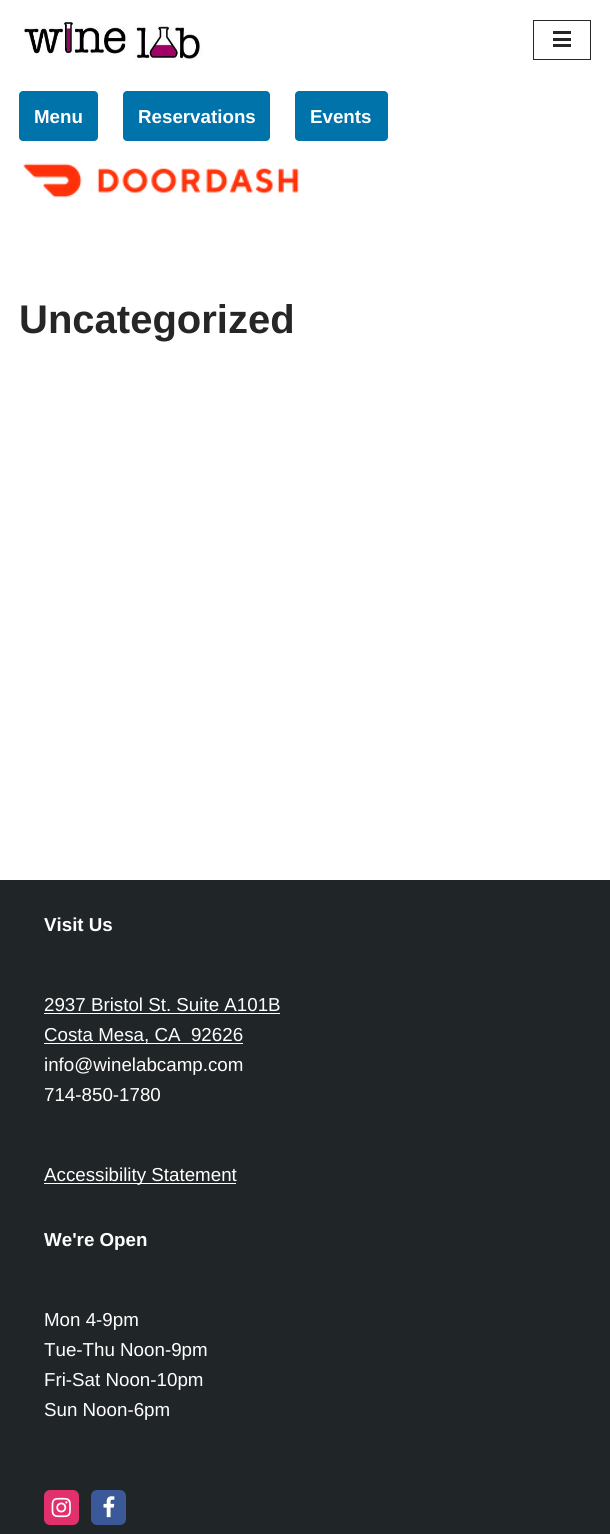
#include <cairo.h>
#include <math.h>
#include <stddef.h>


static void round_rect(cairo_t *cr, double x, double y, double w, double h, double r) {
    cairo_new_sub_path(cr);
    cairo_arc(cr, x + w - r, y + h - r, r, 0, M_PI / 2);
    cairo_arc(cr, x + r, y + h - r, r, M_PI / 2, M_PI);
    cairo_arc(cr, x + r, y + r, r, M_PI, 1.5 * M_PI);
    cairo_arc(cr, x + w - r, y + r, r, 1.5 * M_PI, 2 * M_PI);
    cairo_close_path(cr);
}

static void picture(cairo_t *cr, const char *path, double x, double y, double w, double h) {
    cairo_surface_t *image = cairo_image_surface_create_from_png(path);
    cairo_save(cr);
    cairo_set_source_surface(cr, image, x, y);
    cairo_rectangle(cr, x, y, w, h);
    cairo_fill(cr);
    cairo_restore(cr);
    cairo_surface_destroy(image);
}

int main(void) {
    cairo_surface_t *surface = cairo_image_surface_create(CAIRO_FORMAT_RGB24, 610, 1534);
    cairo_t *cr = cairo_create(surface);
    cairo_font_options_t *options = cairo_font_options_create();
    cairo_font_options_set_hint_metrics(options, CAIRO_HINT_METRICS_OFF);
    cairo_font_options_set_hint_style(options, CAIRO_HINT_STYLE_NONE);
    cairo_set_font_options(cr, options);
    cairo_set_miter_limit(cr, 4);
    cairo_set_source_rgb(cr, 1, 1, 1);
    cairo_paint(cr);
    picture(cr, "img1.png", 23, 22, 179, 39);
    cairo_rectangle(cr, 533.5, 20.5, 57, 39);
    cairo_set_source_rgb(cr, 0.153, 0.149, 0.149);
    cairo_set_line_width(cr, 1);
    cairo_stroke(cr);
    cairo_rectangle(cr, 553, 31, 18, 3);
    cairo_fill(cr);
    cairo_rectangle(cr, 553, 38, 18, 3);
    cairo_fill(cr);
    cairo_rectangle(cr, 553, 44, 18, 3);
    cairo_fill(cr);
    cairo_set_source_rgb(cr, 0, 0.451, 0.667);
    round_rect(cr, 19, 91, 79, 50, 4);
    cairo_fill(cr);
    cairo_select_font_face(cr, "Liberation Sans", CAIRO_FONT_SLANT_NORMAL, CAIRO_FONT_WEIGHT_BOLD);
    cairo_set_font_size(cr, 18.75);
    cairo_set_source_rgb(cr, 1, 1, 1);
    cairo_move_to(cr, 34, 123);
    cairo_show_text(cr, "Menu");
    cairo_set_source_rgb(cr, 0, 0.451, 0.667);
    round_rect(cr, 123, 91, 147, 50, 4);
    cairo_fill(cr);
    cairo_set_source_rgb(cr, 1, 1, 1);
    cairo_move_to(cr, 138, 123);
    cairo_show_text(cr, "Reservations");
    cairo_set_source_rgb(cr, 0, 0.451, 0.667);
    round_rect(cr, 295, 91, 93, 50, 4);
    cairo_fill(cr);
    cairo_set_source_rgb(cr, 1, 1, 1);
    cairo_move_to(cr, 310, 123);
    cairo_show_text(cr, "Events");
    picture(cr, "img2.png", 23, 163, 276, 35);
    cairo_set_font_size(cr, 40);
    cairo_set_source_rgb(cr, 0.153, 0.149, 0.149);
    cairo_move_to(cr, 19, 333);
    cairo_show_text(cr, "Uncategorized");
    cairo_set_source_rgb(cr, 0.125, 0.145, 0.153);
    cairo_rectangle(cr, 0, 880, 610, 654);
    cairo_fill(cr);
    cairo_set_font_size(cr, 18.75);
    cairo_set_source_rgb(cr, 1, 1, 1);
    cairo_move_to(cr, 44, 931);
    cairo_show_text(cr, "Visit Us");
    cairo_select_font_face(cr, "Liberation Sans", CAIRO_FONT_SLANT_NORMAL, CAIRO_FONT_WEIGHT_NORMAL);
    cairo_move_to(cr, 44, 1011);
    cairo_show_text(cr, "2937 Bristol St. Suite A101B");
    cairo_rectangle(cr, 44, 1013, 236, 1);
    cairo_fill(cr);
    cairo_rectangle(cr, 44, 1043, 199, 1);
    cairo_fill(cr);
    cairo_move_to(cr, 44, 1041);
    cairo_show_text(cr, "Costa Mesa, CA  92626");
    cairo_move_to(cr, 44, 1071);
    cairo_show_text(cr, "info@winelabcamp.com");
    cairo_move_to(cr, 44, 1101);
    cairo_show_text(cr, "714-850-1780");
    cairo_rectangle(cr, 44, 1183, 192, 1);
    cairo_fill(cr);
    cairo_move_to(cr, 44, 1181);
    cairo_show_text(cr, "Accessibility Statement");
    cairo_select_font_face(cr, "Liberation Sans", CAIRO_FONT_SLANT_NORMAL, CAIRO_FONT_WEIGHT_BOLD);
    cairo_move_to(cr, 44, 1246);
    cairo_show_text(cr, "We're Open");
    cairo_select_font_face(cr, "Liberation Sans", CAIRO_FONT_SLANT_NORMAL, CAIRO_FONT_WEIGHT_NORMAL);
    cairo_move_to(cr, 44, 1326);
    cairo_show_text(cr, "Mon 4-9pm");
    cairo_move_to(cr, 44, 1356);
    cairo_show_text(cr, "Tue-Thu Noon-9pm");
    cairo_move_to(cr, 44, 1386);
    cairo_show_text(cr, "Fri-Sat Noon-10pm");
    cairo_move_to(cr, 44, 1416);
    cairo_show_text(cr, "Sun Noon-6pm");
    cairo_set_source_rgb(cr, 0.882, 0.188, 0.424);
    round_rect(cr, 44, 1490, 35, 35, 6);
    cairo_fill(cr);
    picture(cr, "img3.png", 51, 1497, 20, 21);
    cairo_set_source_rgb(cr, 0.231, 0.349, 0.596);
    round_rect(cr, 91, 1490, 35, 35, 6);
    cairo_fill(cr);
    picture(cr, "img4.png", 103, 1496, 12, 22);
    cairo_surface_write_to_png(surface, "page.png");
    cairo_font_options_destroy(options);
    cairo_destroy(cr);
    cairo_surface_destroy(surface);
    return 0;
}
